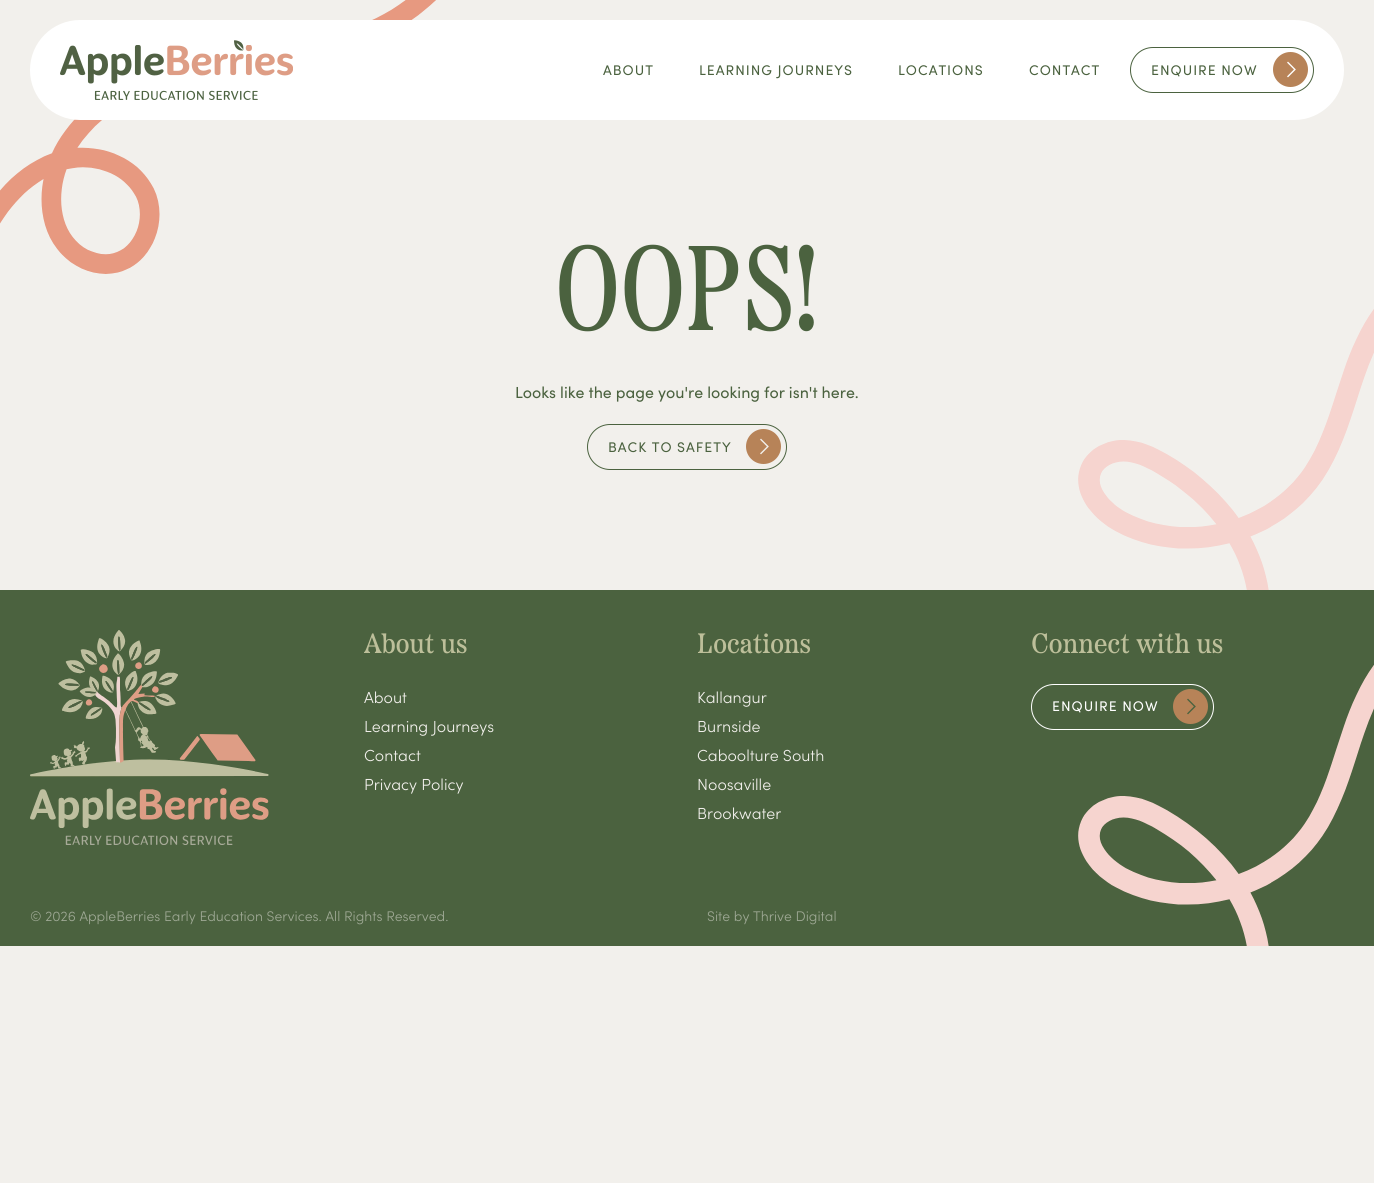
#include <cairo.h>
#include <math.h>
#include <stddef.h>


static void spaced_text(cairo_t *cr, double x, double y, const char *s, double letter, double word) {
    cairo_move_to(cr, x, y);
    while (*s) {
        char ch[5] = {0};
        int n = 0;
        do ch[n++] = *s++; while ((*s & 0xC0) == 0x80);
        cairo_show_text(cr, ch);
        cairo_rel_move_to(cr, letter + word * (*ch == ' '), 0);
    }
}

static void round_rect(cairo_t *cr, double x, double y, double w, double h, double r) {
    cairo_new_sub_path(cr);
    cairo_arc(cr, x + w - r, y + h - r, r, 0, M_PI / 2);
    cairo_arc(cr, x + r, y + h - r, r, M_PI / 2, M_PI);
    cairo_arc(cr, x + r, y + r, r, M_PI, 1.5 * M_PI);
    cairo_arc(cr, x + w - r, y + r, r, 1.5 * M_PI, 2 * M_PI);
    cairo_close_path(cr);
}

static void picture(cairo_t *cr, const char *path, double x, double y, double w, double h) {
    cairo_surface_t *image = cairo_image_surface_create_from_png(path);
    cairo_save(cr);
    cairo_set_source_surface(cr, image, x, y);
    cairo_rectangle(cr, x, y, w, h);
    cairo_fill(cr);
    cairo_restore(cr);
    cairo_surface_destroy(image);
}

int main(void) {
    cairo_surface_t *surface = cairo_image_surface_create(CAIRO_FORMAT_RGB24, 1374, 1183);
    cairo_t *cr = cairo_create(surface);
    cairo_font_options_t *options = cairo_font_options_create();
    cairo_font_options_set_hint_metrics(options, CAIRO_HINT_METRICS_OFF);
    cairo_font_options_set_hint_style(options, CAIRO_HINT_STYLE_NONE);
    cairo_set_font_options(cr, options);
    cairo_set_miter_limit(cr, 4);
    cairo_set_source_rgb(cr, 0.949, 0.941, 0.922);
    cairo_paint(cr);
    picture(cr, "img3.png", 0, 0, 436, 274);
    cairo_set_source_rgb(cr, 1, 1, 1);
    round_rect(cr, 30, 20, 1314, 100, 50);
    cairo_fill(cr);
    picture(cr, "img1.png", 60, 40, 233, 60);
    cairo_select_font_face(cr, "Sofia", CAIRO_FONT_SLANT_NORMAL, CAIRO_FONT_WEIGHT_NORMAL);
    cairo_set_font_size(cr, 14);
    cairo_set_source_rgb(cr, 0.294, 0.384, 0.247);
    spaced_text(cr, 603, 75, "ABOUT", 1, 0);
    spaced_text(cr, 699, 75, "LEARNING JOURNEYS", 1, 0);
    spaced_text(cr, 898, 75, "LOCATIONS", 1, 0);
    spaced_text(cr, 1029, 75, "CONTACT", 1, 0);
    round_rect(cr, 1130.5, 47.5, 183, 45, 22.5);
    cairo_set_line_width(cr, 1);
    cairo_stroke(cr);
    spaced_text(cr, 1151, 75, "ENQUIRE NOW", 1, 0);
    picture(cr, "img2.png", 1273, 52, 35, 35);
    cairo_select_font_face(cr, "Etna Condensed", CAIRO_FONT_SLANT_NORMAL, CAIRO_FONT_WEIGHT_NORMAL);
    cairo_set_font_size(cr, 120);
    cairo_move_to(cr, 555, 330);
    cairo_show_text(cr, "OOPS!");
    cairo_select_font_face(cr, "Sofia", CAIRO_FONT_SLANT_NORMAL, CAIRO_FONT_WEIGHT_NORMAL);
    cairo_set_font_size(cr, 16);
    cairo_move_to(cr, 515, 398);
    cairo_show_text(cr, "Looks like the page you're looking for isn't here.");
    round_rect(cr, 587.5, 424.5, 199, 45, 22.5);
    cairo_stroke(cr);
    cairo_set_font_size(cr, 14);
    spaced_text(cr, 608, 452, "BACK TO SAFETY", 1, 0);
    picture(cr, "img4.png", 746, 429, 35, 35);
    picture(cr, "img5.png", 1078, 309, 296, 281);
    cairo_rectangle(cr, 0, 590, 1374, 356);
    cairo_fill(cr);
    picture(cr, "img6.png", 30, 630, 239, 215);
    cairo_select_font_face(cr, "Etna", CAIRO_FONT_SLANT_NORMAL, CAIRO_FONT_WEIGHT_NORMAL);
    cairo_set_font_size(cr, 28);
    cairo_set_source_rgb(cr, 0.741, 0.749, 0.604);
    cairo_move_to(cr, 364, 653);
    cairo_show_text(cr, "About us");
    cairo_select_font_face(cr, "Sofia Light", CAIRO_FONT_SLANT_NORMAL, CAIRO_FONT_WEIGHT_NORMAL);
    cairo_set_font_size(cr, 16);
    cairo_set_source_rgb(cr, 0.949, 0.941, 0.922);
    cairo_move_to(cr, 364, 703);
    cairo_show_text(cr, "About");
    cairo_move_to(cr, 364, 732);
    cairo_show_text(cr, "Learning Journeys");
    cairo_move_to(cr, 364, 761);
    cairo_show_text(cr, "Contact");
    cairo_move_to(cr, 364, 790);
    cairo_show_text(cr, "Privacy Policy");
    cairo_select_font_face(cr, "Etna", CAIRO_FONT_SLANT_NORMAL, CAIRO_FONT_WEIGHT_NORMAL);
    cairo_set_font_size(cr, 28);
    cairo_set_source_rgb(cr, 0.741, 0.749, 0.604);
    cairo_move_to(cr, 697, 653);
    cairo_show_text(cr, "Locations");
    cairo_select_font_face(cr, "Sofia Light", CAIRO_FONT_SLANT_NORMAL, CAIRO_FONT_WEIGHT_NORMAL);
    cairo_set_font_size(cr, 16);
    cairo_set_source_rgb(cr, 0.949, 0.941, 0.922);
    cairo_move_to(cr, 697, 703);
    cairo_show_text(cr, "Kallangur");
    cairo_move_to(cr, 697, 732);
    cairo_show_text(cr, "Burnside");
    cairo_move_to(cr, 697, 761);
    cairo_show_text(cr, "Caboolture South");
    cairo_move_to(cr, 697, 790);
    cairo_show_text(cr, "Noosaville");
    cairo_move_to(cr, 697, 819);
    cairo_show_text(cr, "Brookwater");
    cairo_select_font_face(cr, "Etna", CAIRO_FONT_SLANT_NORMAL, CAIRO_FONT_WEIGHT_NORMAL);
    cairo_set_font_size(cr, 28);
    cairo_set_source_rgb(cr, 0.741, 0.749, 0.604);
    cairo_move_to(cr, 1031, 653);
    cairo_show_text(cr, "Connect with us");
    picture(cr, "img8.png", 1078, 665, 296, 281);
    round_rect(cr, 1031.5, 684.5, 182, 45, 22.5);
    cairo_set_source_rgb(cr, 1, 1, 1);
    cairo_stroke(cr);
    cairo_select_font_face(cr, "Sofia", CAIRO_FONT_SLANT_NORMAL, CAIRO_FONT_WEIGHT_NORMAL);
    cairo_set_font_size(cr, 14);
    spaced_text(cr, 1052, 711, "ENQUIRE NOW", 1, 0);
    picture(cr, "img7.png", 1173, 689, 35, 35);
    cairo_select_font_face(cr, "Sofia Light", CAIRO_FONT_SLANT_NORMAL, CAIRO_FONT_WEIGHT_NORMAL);
    cairo_set_source_rgb(cr, 0.624, 0.663, 0.584);
    cairo_move_to(cr, 30, 921);
    cairo_show_text(cr, "© 2026 AppleBerries Early Education Services. All Rights Reserved.");
    cairo_move_to(cr, 707, 921);
    cairo_show_text(cr, "Site by Thrive Digital");
    cairo_surface_write_to_png(surface, "page.png");
    cairo_font_options_destroy(options);
    cairo_destroy(cr);
    cairo_surface_destroy(surface);
    return 0;
}
